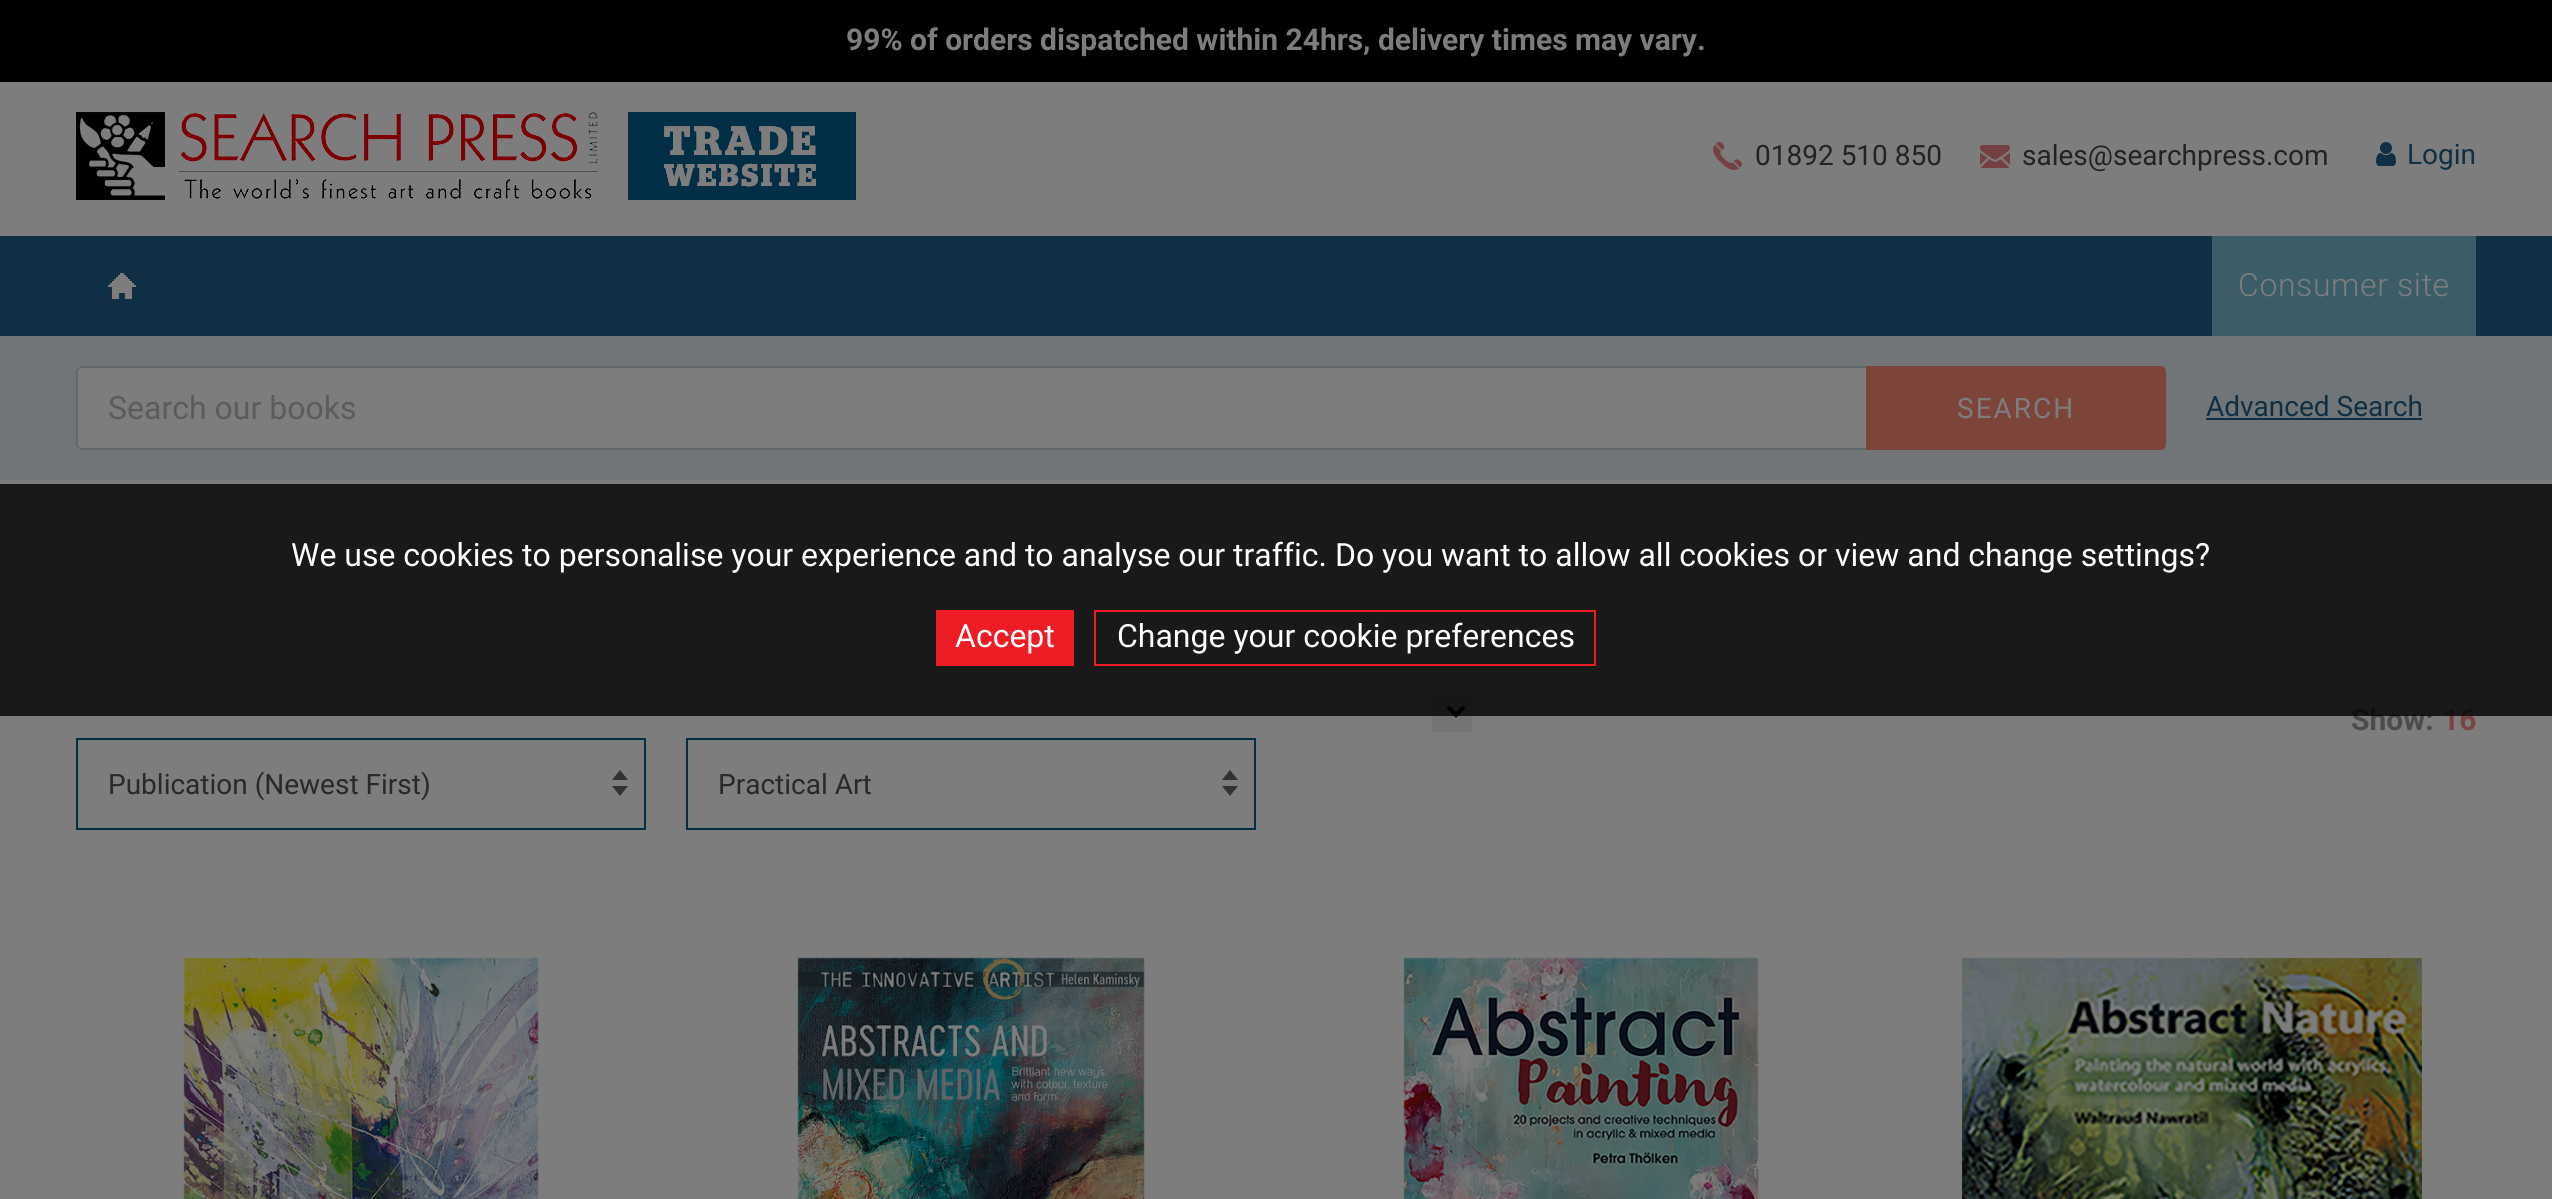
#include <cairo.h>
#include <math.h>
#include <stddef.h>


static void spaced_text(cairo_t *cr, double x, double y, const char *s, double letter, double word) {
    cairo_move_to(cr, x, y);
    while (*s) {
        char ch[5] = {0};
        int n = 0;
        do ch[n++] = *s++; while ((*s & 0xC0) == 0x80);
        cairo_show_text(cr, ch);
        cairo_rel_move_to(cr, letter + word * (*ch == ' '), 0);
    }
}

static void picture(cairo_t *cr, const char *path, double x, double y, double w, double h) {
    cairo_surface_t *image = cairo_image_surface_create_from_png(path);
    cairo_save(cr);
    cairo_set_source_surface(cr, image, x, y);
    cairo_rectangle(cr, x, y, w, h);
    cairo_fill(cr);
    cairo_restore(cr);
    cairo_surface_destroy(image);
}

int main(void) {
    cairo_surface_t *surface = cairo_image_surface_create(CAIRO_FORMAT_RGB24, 2552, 1199);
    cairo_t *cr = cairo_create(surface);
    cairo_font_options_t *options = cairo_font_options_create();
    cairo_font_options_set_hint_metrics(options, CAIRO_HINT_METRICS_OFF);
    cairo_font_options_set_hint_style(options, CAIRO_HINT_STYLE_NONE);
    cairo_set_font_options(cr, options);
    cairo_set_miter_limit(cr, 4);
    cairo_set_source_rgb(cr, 0.49, 0.49, 0.49);
    cairo_paint(cr);
    cairo_set_source_rgb(cr, 0, 0, 0);
    cairo_rectangle(cr, 0, 0, 2552, 82);
    cairo_fill(cr);
    cairo_select_font_face(cr, "Roboto", CAIRO_FONT_SLANT_NORMAL, CAIRO_FONT_WEIGHT_BOLD);
    cairo_set_font_size(cr, 30);
    cairo_set_source_rgb(cr, 0.49, 0.49, 0.49);
    cairo_move_to(cr, 846, 50);
    cairo_show_text(cr, "99% of orders dispatched within 24hrs, delivery times may vary.");
    picture(cr, "img1.png", 76, 112, 780, 88);
    picture(cr, "img2.png", 1713, 142, 29, 28);
    cairo_select_font_face(cr, "Roboto", CAIRO_FONT_SLANT_NORMAL, CAIRO_FONT_WEIGHT_NORMAL);
    cairo_set_font_size(cr, 28);
    cairo_set_source_rgb(cr, 0.137, 0.137, 0.137);
    cairo_move_to(cr, 1755, 165);
    cairo_show_text(cr, "01892 510 850");
    picture(cr, "img3.png", 1980, 145, 30, 23);
    cairo_move_to(cr, 2022, 165);
    cairo_show_text(cr, "sales@searchpress.com");
    picture(cr, "img4.png", 2376, 142, 20, 24);
    cairo_set_source_rgb(cr, 0.059, 0.184, 0.267);
    cairo_move_to(cr, 2407, 164);
    cairo_show_text(cr, "Login");
    cairo_rectangle(cr, 0, 236, 2552, 100);
    cairo_fill(cr);
    picture(cr, "img5.png", 108, 273, 28, 26);
    cairo_set_source_rgb(cr, 0.227, 0.365, 0.408);
    cairo_rectangle(cr, 2212, 236, 264, 100);
    cairo_fill(cr);
    cairo_select_font_face(cr, "Roboto Light", CAIRO_FONT_SLANT_NORMAL, CAIRO_FONT_WEIGHT_NORMAL);
    cairo_set_font_size(cr, 32);
    cairo_set_source_rgb(cr, 0.49, 0.49, 0.49);
    spaced_text(cr, 2238, 296, "Consumer site", 0.6, 0);
    cairo_set_source_rgb(cr, 0.447, 0.459, 0.467);
    cairo_rectangle(cr, 0, 336, 2552, 144);
    cairo_fill(cr);
    cairo_set_source_rgb(cr, 0.49, 0.49, 0.49);
    cairo_new_path(cr);
    cairo_move_to(cr, 82, 366);
    cairo_line_to(cr, 1866, 366);
    cairo_line_to(cr, 1866, 450);
    cairo_line_to(cr, 82, 450);
    cairo_curve_to(cr, 78.5, 450, 76, 447.5, 76, 444);
    cairo_line_to(cr, 76, 372);
    cairo_curve_to(cr, 76, 368.5, 78.5, 366, 82, 366);
    cairo_close_path(cr);
    cairo_fill(cr);
    cairo_set_source_rgb(cr, 0.376, 0.412, 0.439);
    cairo_set_fill_rule(cr, CAIRO_FILL_RULE_EVEN_ODD);
    cairo_new_path(cr);
    cairo_move_to(cr, 82, 366);
    cairo_line_to(cr, 1866, 366);
    cairo_line_to(cr, 1866, 450);
    cairo_line_to(cr, 82, 450);
    cairo_curve_to(cr, 79, 450, 76, 447, 76, 444);
    cairo_line_to(cr, 76, 372);
    cairo_curve_to(cr, 76, 369, 79, 366, 82, 366);
    cairo_close_path(cr);
    cairo_move_to(cr, 82, 368);
    cairo_line_to(cr, 1866, 368);
    cairo_line_to(cr, 1866, 448);
    cairo_line_to(cr, 82, 448);
    cairo_curve_to(cr, 80, 448, 78, 446, 78, 444);
    cairo_line_to(cr, 78, 372);
    cairo_curve_to(cr, 78, 370, 80, 368, 82, 368);
    cairo_close_path(cr);
    cairo_fill(cr);
    cairo_select_font_face(cr, "Roboto", CAIRO_FONT_SLANT_NORMAL, CAIRO_FONT_WEIGHT_NORMAL);
    cairo_set_source_rgb(cr, 0.361, 0.361, 0.361);
    cairo_move_to(cr, 108, 419);
    cairo_show_text(cr, "Search our books");
    cairo_set_source_rgb(cr, 0.49, 0.267, 0.224);
    cairo_new_path(cr);
    cairo_move_to(cr, 1867, 367);
    cairo_line_to(cr, 2160, 367);
    cairo_curve_to(cr, 2163, 367, 2165, 369, 2165, 372);
    cairo_line_to(cr, 2165, 444);
    cairo_curve_to(cr, 2165, 447, 2163, 449, 2160, 449);
    cairo_line_to(cr, 1867, 449);
    cairo_close_path(cr);
    cairo_fill_preserve(cr);
    cairo_stroke(cr);
    cairo_set_font_size(cr, 28);
    cairo_set_source_rgb(cr, 0.49, 0.49, 0.49);
    spaced_text(cr, 1957, 418, "SEARCH", 2, 0);
    cairo_set_source_rgb(cr, 0.059, 0.184, 0.267);
    cairo_move_to(cr, 2206, 416);
    cairo_show_text(cr, "Advanced Search");
    cairo_rectangle(cr, 2206, 418, 216, 2);
    cairo_fill(cr);
    cairo_set_source_rgb(cr, 0.459, 0.459, 0.459);
    cairo_rectangle(cr, 1432, 690, 40, 42);
    cairo_fill(cr);
    cairo_new_path(cr);
    cairo_move_to(cr, 1448, 707);
    cairo_line_to(cr, 1456, 715);
    cairo_line_to(cr, 1464, 707);
    cairo_set_source_rgb(cr, 0, 0, 0);
    cairo_set_line_width(cr, 4);
    cairo_stroke(cr);
    cairo_select_font_face(cr, "Roboto", CAIRO_FONT_SLANT_NORMAL, CAIRO_FONT_WEIGHT_BOLD);
    cairo_set_font_size(cr, 30);
    cairo_set_source_rgb(cr, 0.298, 0.298, 0.298);
    cairo_move_to(cr, 2351, 730);
    cairo_show_text(cr, "Show:");
    cairo_set_source_rgb(cr, 0.49, 0.263, 0.263);
    cairo_move_to(cr, 2442, 730);
    cairo_show_text(cr, "16");
    cairo_set_source_rgba(cr, 0, 0, 0, 0.8);
    cairo_rectangle(cr, 0, 484, 2552, 232);
    cairo_fill(cr);
    cairo_select_font_face(cr, "Roboto", CAIRO_FONT_SLANT_NORMAL, CAIRO_FONT_WEIGHT_NORMAL);
    cairo_set_font_size(cr, 32);
    cairo_set_source_rgb(cr, 1, 1, 1);
    cairo_move_to(cr, 291, 566);
    cairo_show_text(cr, "We use cookies to personalise your experience and to analyse our traffic. Do you want to allow all cookies or view and change settings?");
    cairo_set_source_rgb(cr, 0.933, 0.11, 0.145);
    cairo_rectangle(cr, 936, 610, 138, 56);
    cairo_fill(cr);
    cairo_set_source_rgb(cr, 1, 1, 1);
    cairo_move_to(cr, 955, 647);
    cairo_show_text(cr, "Accept");
    cairo_rectangle(cr, 1095, 611, 500, 54);
    cairo_set_source_rgb(cr, 0.933, 0.11, 0.145);
    cairo_set_line_width(cr, 2);
    cairo_stroke(cr);
    cairo_set_source_rgb(cr, 1, 1, 1);
    cairo_move_to(cr, 1117, 647);
    cairo_show_text(cr, "Change your cookie preferences");
    cairo_rectangle(cr, 77, 739, 568, 90);
    cairo_set_source_rgb(cr, 0, 0.184, 0.275);
    cairo_stroke(cr);
    cairo_set_font_size(cr, 28);
    cairo_set_source_rgb(cr, 0.161, 0.161, 0.161);
    cairo_move_to(cr, 108, 794);
    cairo_show_text(cr, "Publication (Newest First)");
    cairo_set_source_rgb(cr, 0.196, 0.196, 0.196);
    cairo_set_fill_rule(cr, CAIRO_FILL_RULE_WINDING);
    cairo_new_path(cr);
    cairo_move_to(cr, 612, 786);
    cairo_line_to(cr, 628, 786);
    cairo_line_to(cr, 620, 796);
    cairo_close_path(cr);
    cairo_move_to(cr, 628, 780);
    cairo_line_to(cr, 612, 780);
    cairo_line_to(cr, 620, 770);
    cairo_close_path(cr);
    cairo_fill(cr);
    cairo_rectangle(cr, 687, 739, 568, 90);
    cairo_set_source_rgb(cr, 0, 0.184, 0.275);
    cairo_stroke(cr);
    cairo_set_source_rgb(cr, 0.161, 0.161, 0.161);
    cairo_move_to(cr, 718, 794);
    cairo_show_text(cr, "Practical Art");
    cairo_set_source_rgb(cr, 0.196, 0.196, 0.196);
    cairo_new_path(cr);
    cairo_move_to(cr, 1222, 786);
    cairo_line_to(cr, 1238, 786);
    cairo_line_to(cr, 1230, 796);
    cairo_close_path(cr);
    cairo_move_to(cr, 1238, 780);
    cairo_line_to(cr, 1222, 780);
    cairo_line_to(cr, 1230, 770);
    cairo_close_path(cr);
    cairo_fill(cr);
    picture(cr, "img6.png", 183, 957, 356, 242);
    picture(cr, "img7.png", 797, 957, 348, 242);
    picture(cr, "img8.png", 1403, 957, 356, 242);
    picture(cr, "img9.png", 1961, 957, 461, 242);
    cairo_surface_write_to_png(surface, "page.png");
    cairo_font_options_destroy(options);
    cairo_destroy(cr);
    cairo_surface_destroy(surface);
    return 0;
}
